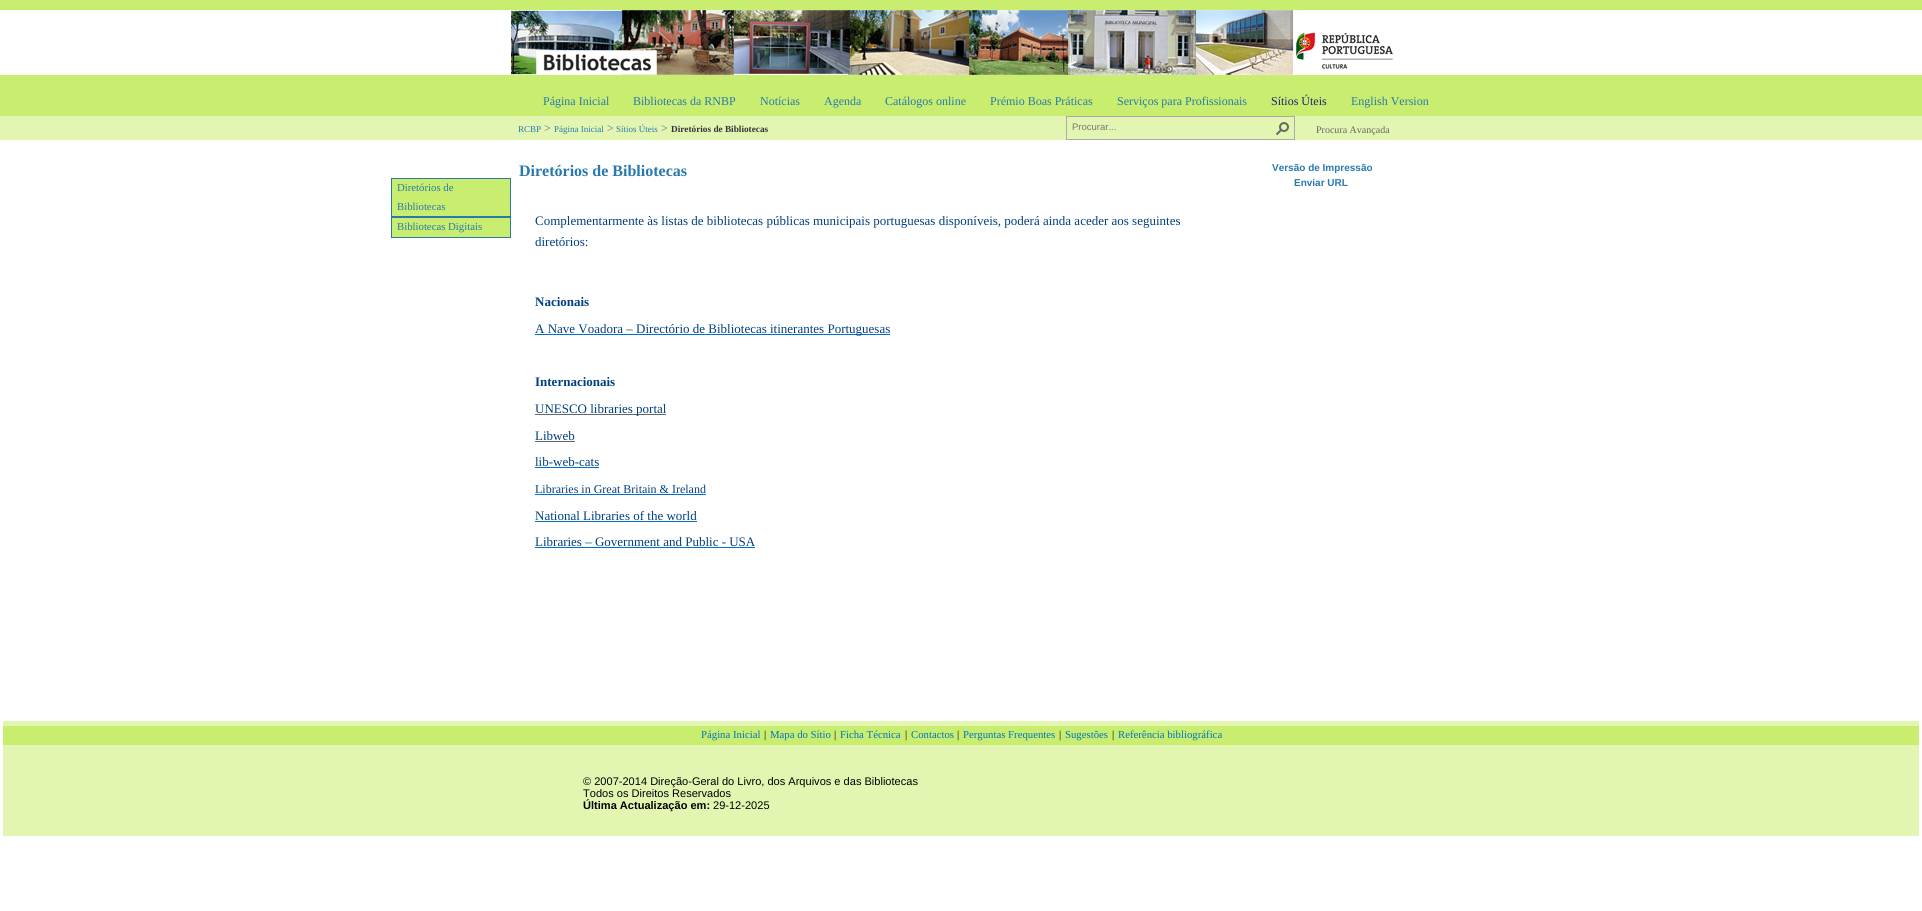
#include <cairo.h>
#include <math.h>
#include <stddef.h>


static void picture(cairo_t *cr, const char *path, double x, double y, double w, double h) {
    cairo_surface_t *image = cairo_image_surface_create_from_png(path);
    cairo_save(cr);
    cairo_set_source_surface(cr, image, x, y);
    cairo_rectangle(cr, x, y, w, h);
    cairo_fill(cr);
    cairo_restore(cr);
    cairo_surface_destroy(image);
}

int main(void) {
    cairo_surface_t *surface = cairo_image_surface_create(CAIRO_FORMAT_RGB24, 1922, 911);
    cairo_t *cr = cairo_create(surface);
    cairo_font_options_t *options = cairo_font_options_create();
    cairo_font_options_set_hint_metrics(options, CAIRO_HINT_METRICS_OFF);
    cairo_font_options_set_hint_style(options, CAIRO_HINT_STYLE_NONE);
    cairo_set_font_options(cr, options);
    cairo_set_miter_limit(cr, 4);
    cairo_set_source_rgb(cr, 1, 1, 1);
    cairo_paint(cr);
    cairo_set_source_rgb(cr, 0.788, 0.929, 0.431);
    cairo_rectangle(cr, 0, 0, 1922, 10);
    cairo_fill(cr);
    picture(cr, "img1.png", 511, 10, 882, 65);
    cairo_rectangle(cr, 0, 75, 1922, 41);
    cairo_fill(cr);
    cairo_select_font_face(cr, "Liberation Serif", CAIRO_FONT_SLANT_NORMAL, CAIRO_FONT_WEIGHT_NORMAL);
    cairo_set_font_size(cr, 12);
    cairo_set_source_rgb(cr, 0.161, 0.475, 0.678);
    cairo_move_to(cr, 543, 105);
    cairo_show_text(cr, "Página Inicial");
    cairo_move_to(cr, 633, 105);
    cairo_show_text(cr, "Bibliotecas da RNBP");
    cairo_move_to(cr, 760, 105);
    cairo_show_text(cr, "Notícias");
    cairo_move_to(cr, 824, 105);
    cairo_show_text(cr, "Agenda");
    cairo_move_to(cr, 885, 105);
    cairo_show_text(cr, "Catálogos online");
    cairo_move_to(cr, 990, 105);
    cairo_show_text(cr, "Prémio Boas Práticas");
    cairo_move_to(cr, 1117, 105);
    cairo_show_text(cr, "Serviços para Profissionais");
    cairo_set_source_rgb(cr, 0.102, 0.137, 0.439);
    cairo_move_to(cr, 1271, 105);
    cairo_show_text(cr, "Sítios Úteis");
    cairo_set_source_rgb(cr, 0.161, 0.475, 0.678);
    cairo_move_to(cr, 1351, 105);
    cairo_show_text(cr, "English Version");
    cairo_set_source_rgb(cr, 0.886, 0.961, 0.698);
    cairo_rectangle(cr, 0, 116, 1922, 24);
    cairo_fill(cr);
    cairo_set_font_size(cr, 9);
    cairo_set_source_rgb(cr, 0.161, 0.475, 0.678);
    cairo_move_to(cr, 518, 132);
    cairo_show_text(cr, "RCBP");
    cairo_set_font_size(cr, 12);
    cairo_set_source_rgb(cr, 0.396, 0.42, 0.467);
    cairo_move_to(cr, 544, 132);
    cairo_show_text(cr, ">");
    cairo_set_font_size(cr, 9);
    cairo_set_source_rgb(cr, 0.161, 0.475, 0.678);
    cairo_move_to(cr, 554, 132);
    cairo_show_text(cr, "Página Inicial");
    cairo_set_font_size(cr, 12);
    cairo_set_source_rgb(cr, 0.396, 0.42, 0.467);
    cairo_move_to(cr, 607, 132);
    cairo_show_text(cr, ">");
    cairo_set_font_size(cr, 9);
    cairo_set_source_rgb(cr, 0.161, 0.475, 0.678);
    cairo_move_to(cr, 616, 132);
    cairo_show_text(cr, "Sítios Úteis");
    cairo_set_font_size(cr, 12);
    cairo_set_source_rgb(cr, 0.396, 0.42, 0.467);
    cairo_move_to(cr, 661, 132);
    cairo_show_text(cr, ">");
    cairo_select_font_face(cr, "Liberation Serif", CAIRO_FONT_SLANT_NORMAL, CAIRO_FONT_WEIGHT_BOLD);
    cairo_set_font_size(cr, 9.25);
    cairo_set_source_rgb(cr, 0.2, 0.2, 0.2);
    cairo_move_to(cr, 671, 132);
    cairo_show_text(cr, "Diretórios de Bibliotecas");
    cairo_rectangle(cr, 1066.5, 116.5, 228, 23);
    cairo_set_source_rgb(cr, 0.671, 0.671, 0.671);
    cairo_set_line_width(cr, 1);
    cairo_stroke(cr);
    cairo_select_font_face(cr, "Liberation Sans", CAIRO_FONT_SLANT_NORMAL, CAIRO_FONT_WEIGHT_NORMAL);
    cairo_set_font_size(cr, 9.5);
    cairo_set_source_rgb(cr, 0.467, 0.467, 0.467);
    cairo_move_to(cr, 1072, 130);
    cairo_show_text(cr, "Procurar...");
    picture(cr, "img2.png", 1275, 122, 14, 14);
    cairo_select_font_face(cr, "Liberation Serif", CAIRO_FONT_SLANT_NORMAL, CAIRO_FONT_WEIGHT_NORMAL);
    cairo_set_font_size(cr, 10);
    cairo_set_source_rgb(cr, 0.4, 0.4, 0.4);
    cairo_move_to(cr, 1316, 133);
    cairo_show_text(cr, "Procura Avançada");
    cairo_set_source_rgb(cr, 0.788, 0.929, 0.431);
    cairo_rectangle(cr, 392, 179, 118, 58);
    cairo_fill(cr);
    cairo_rectangle(cr, 391.5, 178.5, 119, 38);
    cairo_set_source_rgb(cr, 0.161, 0.475, 0.678);
    cairo_stroke(cr);
    cairo_set_font_size(cr, 10.75);
    cairo_move_to(cr, 397, 191);
    cairo_show_text(cr, "Diretórios de");
    cairo_move_to(cr, 397, 210);
    cairo_show_text(cr, "Bibliotecas");
    cairo_rectangle(cr, 391.5, 217.5, 119, 20);
    cairo_stroke(cr);
    cairo_move_to(cr, 397, 230);
    cairo_show_text(cr, "Bibliotecas Digitais");
    cairo_select_font_face(cr, "Liberation Serif", CAIRO_FONT_SLANT_NORMAL, CAIRO_FONT_WEIGHT_BOLD);
    cairo_set_font_size(cr, 16);
    cairo_move_to(cr, 519, 176);
    cairo_show_text(cr, "Diretórios de Bibliotecas");
    cairo_select_font_face(cr, "Liberation Serif", CAIRO_FONT_SLANT_NORMAL, CAIRO_FONT_WEIGHT_NORMAL);
    cairo_set_font_size(cr, 13);
    cairo_set_source_rgb(cr, 0, 0.251, 0.502);
    cairo_move_to(cr, 535, 225);
    cairo_show_text(cr, "Complementarmente às listas de bibliotecas públicas municipais portuguesas disponíveis, poderá ainda aceder aos seguintes");
    cairo_move_to(cr, 535, 246);
    cairo_show_text(cr, "diretórios:");
    cairo_select_font_face(cr, "Liberation Serif", CAIRO_FONT_SLANT_NORMAL, CAIRO_FONT_WEIGHT_BOLD);
    cairo_move_to(cr, 535, 306);
    cairo_show_text(cr, "Nacionais");
    cairo_set_source_rgb(cr, 0, 0.447, 0.776);
    cairo_rectangle(cr, 535, 334, 355, 1);
    cairo_fill(cr);
    cairo_select_font_face(cr, "Liberation Serif", CAIRO_FONT_SLANT_NORMAL, CAIRO_FONT_WEIGHT_NORMAL);
    cairo_set_source_rgb(cr, 0, 0.251, 0.502);
    cairo_move_to(cr, 535, 333);
    cairo_show_text(cr, "A Nave Voadora – Directório de Bibliotecas itinerantes Portuguesas");
    cairo_select_font_face(cr, "Liberation Serif", CAIRO_FONT_SLANT_NORMAL, CAIRO_FONT_WEIGHT_BOLD);
    cairo_move_to(cr, 535, 386);
    cairo_show_text(cr, "Internacionais");
    cairo_set_source_rgb(cr, 0.4, 0.4, 0.4);
    cairo_rectangle(cr, 535, 414, 131, 1);
    cairo_fill(cr);
    cairo_select_font_face(cr, "Liberation Serif", CAIRO_FONT_SLANT_NORMAL, CAIRO_FONT_WEIGHT_NORMAL);
    cairo_set_source_rgb(cr, 0, 0.251, 0.502);
    cairo_move_to(cr, 535, 413);
    cairo_show_text(cr, "UNESCO libraries portal");
    cairo_move_to(cr, 535, 440);
    cairo_show_text(cr, "Libweb");
    cairo_set_source_rgb(cr, 0.4, 0.4, 0.4);
    cairo_rectangle(cr, 535, 441, 40, 1);
    cairo_fill(cr);
    cairo_set_source_rgb(cr, 0, 0.251, 0.502);
    cairo_move_to(cr, 535, 466);
    cairo_show_text(cr, "lib-web-cats");
    cairo_set_source_rgb(cr, 0, 0.447, 0.776);
    cairo_rectangle(cr, 535, 467, 64, 1);
    cairo_fill(cr);
    cairo_set_font_size(cr, 12);
    cairo_set_source_rgb(cr, 0, 0.251, 0.502);
    cairo_move_to(cr, 535, 493);
    cairo_show_text(cr, "Libraries in Great Britain & Ireland");
    cairo_set_source_rgb(cr, 0, 0.447, 0.776);
    cairo_rectangle(cr, 535, 494, 171, 1);
    cairo_fill(cr);
    cairo_set_font_size(cr, 13);
    cairo_set_source_rgb(cr, 0, 0.251, 0.502);
    cairo_move_to(cr, 535, 520);
    cairo_show_text(cr, "National Libraries of the world");
    cairo_set_source_rgb(cr, 0, 0.447, 0.776);
    cairo_rectangle(cr, 535, 521, 162, 1);
    cairo_fill(cr);
    cairo_set_source_rgb(cr, 0, 0.251, 0.502);
    cairo_move_to(cr, 535, 546);
    cairo_show_text(cr, "Libraries – Government and Public - USA");
    cairo_set_source_rgb(cr, 0, 0.447, 0.776);
    cairo_rectangle(cr, 535, 547, 220, 1);
    cairo_fill(cr);
    cairo_select_font_face(cr, "Liberation Sans", CAIRO_FONT_SLANT_NORMAL, CAIRO_FONT_WEIGHT_BOLD);
    cairo_set_font_size(cr, 10);
    cairo_set_source_rgb(cr, 0.161, 0.475, 0.678);
    cairo_move_to(cr, 1272, 171);
    cairo_show_text(cr, "Versão de Impressão");
    cairo_move_to(cr, 1294, 186);
    cairo_show_text(cr, "Enviar URL");
    cairo_set_source_rgb(cr, 0.886, 0.961, 0.698);
    cairo_rectangle(cr, 3, 721, 1916, 115);
    cairo_fill(cr);
    cairo_set_source_rgb(cr, 0.788, 0.929, 0.431);
    cairo_rectangle(cr, 3, 726, 1916, 19);
    cairo_fill(cr);
    cairo_select_font_face(cr, "Liberation Serif", CAIRO_FONT_SLANT_NORMAL, CAIRO_FONT_WEIGHT_NORMAL);
    cairo_set_font_size(cr, 10.75);
    cairo_set_source_rgb(cr, 0, 0.447, 0.776);
    cairo_move_to(cr, 701, 738);
    cairo_show_text(cr, "Página Inicial");
    cairo_set_source_rgb(cr, 0, 0, 0);
    cairo_move_to(cr, 764, 738);
    cairo_show_text(cr, "|");
    cairo_set_source_rgb(cr, 0, 0.447, 0.776);
    cairo_move_to(cr, 770, 738);
    cairo_show_text(cr, "Mapa do Sítio");
    cairo_set_source_rgb(cr, 0, 0, 0);
    cairo_move_to(cr, 834, 738);
    cairo_show_text(cr, "|");
    cairo_set_source_rgb(cr, 0, 0.447, 0.776);
    cairo_move_to(cr, 840, 738);
    cairo_show_text(cr, "Ficha Técnica");
    cairo_set_source_rgb(cr, 0, 0, 0);
    cairo_move_to(cr, 905, 738);
    cairo_show_text(cr, "|");
    cairo_set_source_rgb(cr, 0, 0.447, 0.776);
    cairo_move_to(cr, 911, 738);
    cairo_show_text(cr, "Contactos");
    cairo_set_source_rgb(cr, 0, 0, 0);
    cairo_move_to(cr, 957, 738);
    cairo_show_text(cr, "|");
    cairo_set_source_rgb(cr, 0, 0.447, 0.776);
    cairo_move_to(cr, 963, 738);
    cairo_show_text(cr, "Perguntas Frequentes");
    cairo_set_source_rgb(cr, 0, 0, 0);
    cairo_move_to(cr, 1059, 738);
    cairo_show_text(cr, "|");
    cairo_set_source_rgb(cr, 0, 0.447, 0.776);
    cairo_move_to(cr, 1065, 738);
    cairo_show_text(cr, "Sugestões");
    cairo_set_source_rgb(cr, 0, 0, 0);
    cairo_move_to(cr, 1112, 738);
    cairo_show_text(cr, "|");
    cairo_set_source_rgb(cr, 0, 0.447, 0.776);
    cairo_move_to(cr, 1118, 738);
    cairo_show_text(cr, "Referência bibliográfica");
    cairo_select_font_face(cr, "Liberation Sans", CAIRO_FONT_SLANT_NORMAL, CAIRO_FONT_WEIGHT_NORMAL);
    cairo_set_font_size(cr, 11.05);
    cairo_set_source_rgb(cr, 0, 0, 0);
    cairo_move_to(cr, 583, 785);
    cairo_show_text(cr, "© 2007-2014 Direção-Geral do Livro, dos Arquivos e das Bibliotecas");
    cairo_move_to(cr, 583, 797);
    cairo_show_text(cr, "Todos os Direitos Reservados");
    cairo_select_font_face(cr, "Liberation Sans", CAIRO_FONT_SLANT_NORMAL, CAIRO_FONT_WEIGHT_BOLD);
    cairo_move_to(cr, 583, 809);
    cairo_show_text(cr, "Última Actualização em:");
    cairo_select_font_face(cr, "Liberation Sans", CAIRO_FONT_SLANT_NORMAL, CAIRO_FONT_WEIGHT_NORMAL);
    cairo_move_to(cr, 713, 809);
    cairo_show_text(cr, "29-12-2025");
    cairo_surface_write_to_png(surface, "page.png");
    cairo_font_options_destroy(options);
    cairo_destroy(cr);
    cairo_surface_destroy(surface);
    return 0;
}
